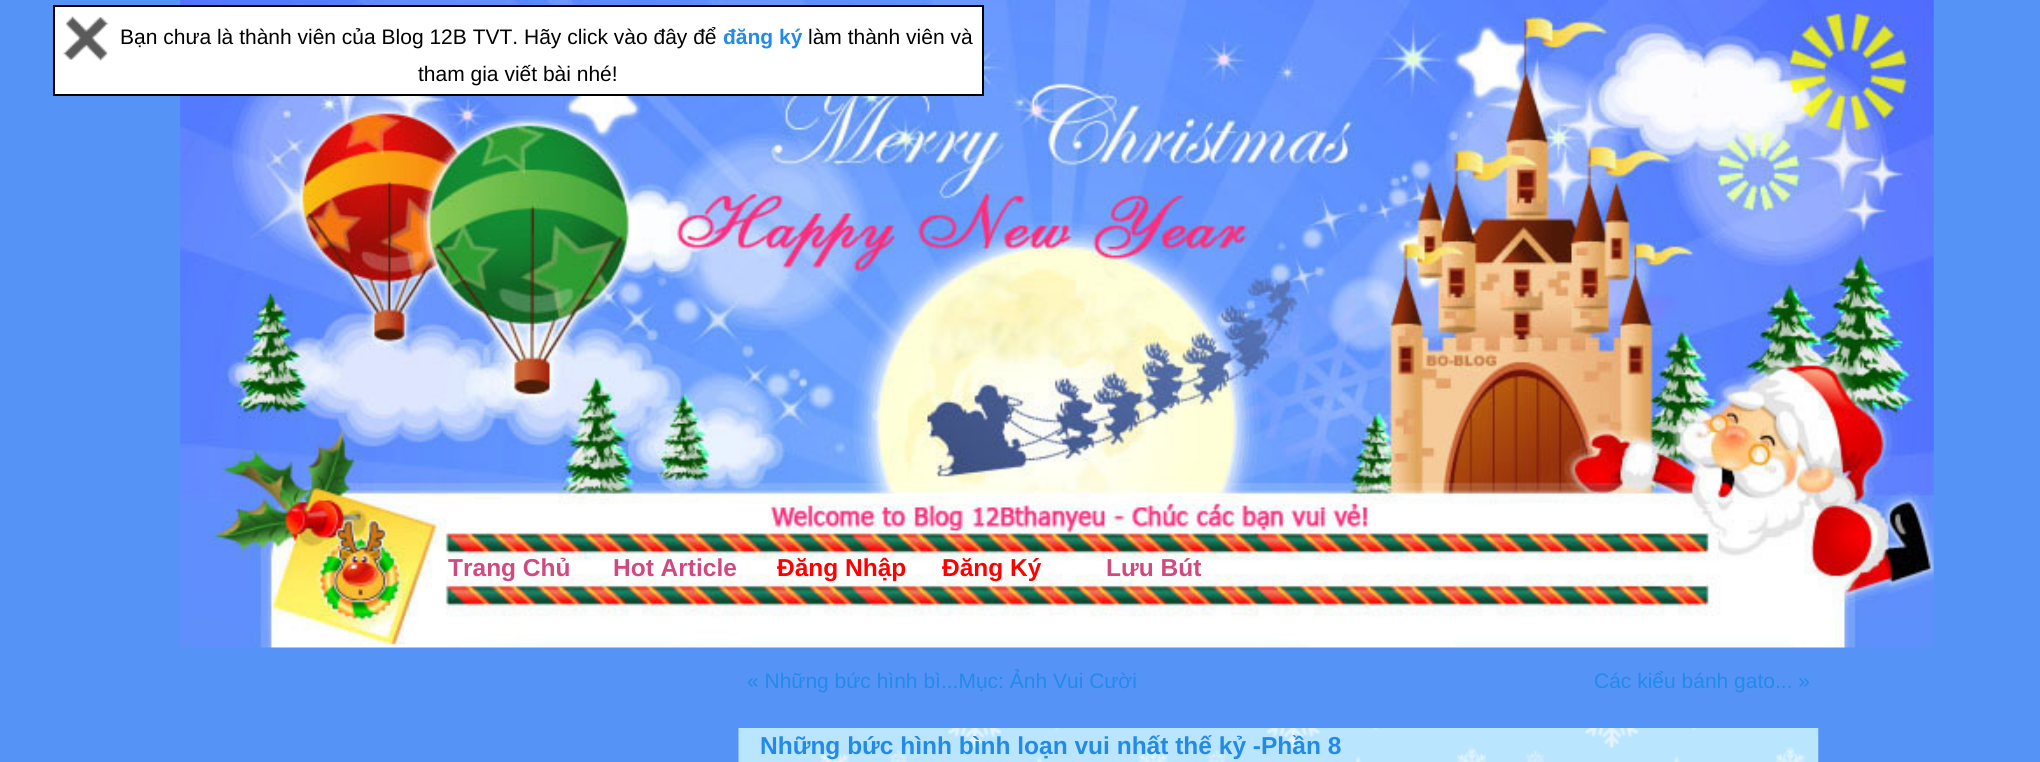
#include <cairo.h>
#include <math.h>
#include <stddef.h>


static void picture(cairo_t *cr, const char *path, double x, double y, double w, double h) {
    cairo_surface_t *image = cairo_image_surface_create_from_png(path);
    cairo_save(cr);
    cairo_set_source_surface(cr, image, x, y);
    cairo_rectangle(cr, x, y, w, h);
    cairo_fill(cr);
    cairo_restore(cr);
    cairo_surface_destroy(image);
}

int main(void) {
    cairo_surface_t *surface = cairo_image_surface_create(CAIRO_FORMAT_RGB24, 2040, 762);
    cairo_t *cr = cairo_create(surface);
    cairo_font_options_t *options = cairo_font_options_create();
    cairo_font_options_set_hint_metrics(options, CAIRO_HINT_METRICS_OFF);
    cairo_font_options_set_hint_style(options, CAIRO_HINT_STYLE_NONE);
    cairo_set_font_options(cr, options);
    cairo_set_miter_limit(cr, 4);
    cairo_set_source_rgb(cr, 0.333, 0.576, 0.965);
    cairo_paint(cr);
    picture(cr, "img2.png", 180, 0, 1754, 648);
    cairo_set_source_rgb(cr, 1, 1, 1);
    cairo_rectangle(cr, 54, 6, 929, 89);
    cairo_fill_preserve(cr);
    cairo_set_source_rgb(cr, 0, 0, 0);
    cairo_stroke(cr);
    picture(cr, "img1.png", 63, 15, 46, 47);
    cairo_select_font_face(cr, "Liberation Sans", CAIRO_FONT_SLANT_NORMAL, CAIRO_FONT_WEIGHT_NORMAL);
    cairo_set_font_size(cr, 21);
    cairo_move_to(cr, 120, 44);
    cairo_show_text(cr, "Bạn chưa là thành viên của Blog 12B TVT. Hãy click vào đây để");
    cairo_select_font_face(cr, "Liberation Sans", CAIRO_FONT_SLANT_NORMAL, CAIRO_FONT_WEIGHT_BOLD);
    cairo_set_source_rgb(cr, 0.133, 0.541, 0.91);
    cairo_move_to(cr, 723, 44);
    cairo_show_text(cr, "đăng ký");
    cairo_select_font_face(cr, "Liberation Sans", CAIRO_FONT_SLANT_NORMAL, CAIRO_FONT_WEIGHT_NORMAL);
    cairo_set_source_rgb(cr, 0, 0, 0);
    cairo_move_to(cr, 808, 44);
    cairo_show_text(cr, "làm thành viên và");
    cairo_move_to(cr, 418, 81);
    cairo_show_text(cr, "tham gia viết bài nhé!");
    cairo_select_font_face(cr, "Liberation Sans", CAIRO_FONT_SLANT_NORMAL, CAIRO_FONT_WEIGHT_BOLD);
    cairo_set_font_size(cr, 24.5);
    cairo_set_source_rgb(cr, 0.808, 0.29, 0.502);
    cairo_move_to(cr, 448, 576);
    cairo_show_text(cr, "Trang Chủ");
    cairo_move_to(cr, 613, 576);
    cairo_show_text(cr, "Hot Article");
    cairo_set_source_rgb(cr, 1, 0, 0);
    cairo_move_to(cr, 777, 576);
    cairo_show_text(cr, "Đăng Nhập");
    cairo_move_to(cr, 942, 576);
    cairo_show_text(cr, "Đăng Ký");
    cairo_set_source_rgb(cr, 0.808, 0.29, 0.502);
    cairo_move_to(cr, 1106, 576);
    cairo_show_text(cr, "Lưu Bút");
    cairo_select_font_face(cr, "Liberation Sans", CAIRO_FONT_SLANT_NORMAL, CAIRO_FONT_WEIGHT_NORMAL);
    cairo_set_font_size(cr, 21);
    cairo_set_source_rgb(cr, 0.133, 0.541, 0.91);
    cairo_move_to(cr, 747, 688);
    cairo_show_text(cr, "« Những bức hình bì...Mục: Ảnh Vui Cười");
    cairo_move_to(cr, 1594, 688);
    cairo_show_text(cr, "Các kiểu bánh gato... »");
    picture(cr, "img3.png", 738, 728, 1081, 34);
    cairo_select_font_face(cr, "Liberation Sans", CAIRO_FONT_SLANT_NORMAL, CAIRO_FONT_WEIGHT_BOLD);
    cairo_set_font_size(cr, 24.5);
    cairo_move_to(cr, 760, 754);
    cairo_show_text(cr, "Những bức hình bình loạn vui nhất thế kỷ -Phần 8");
    cairo_surface_write_to_png(surface, "page.png");
    cairo_font_options_destroy(options);
    cairo_destroy(cr);
    cairo_surface_destroy(surface);
    return 0;
}
